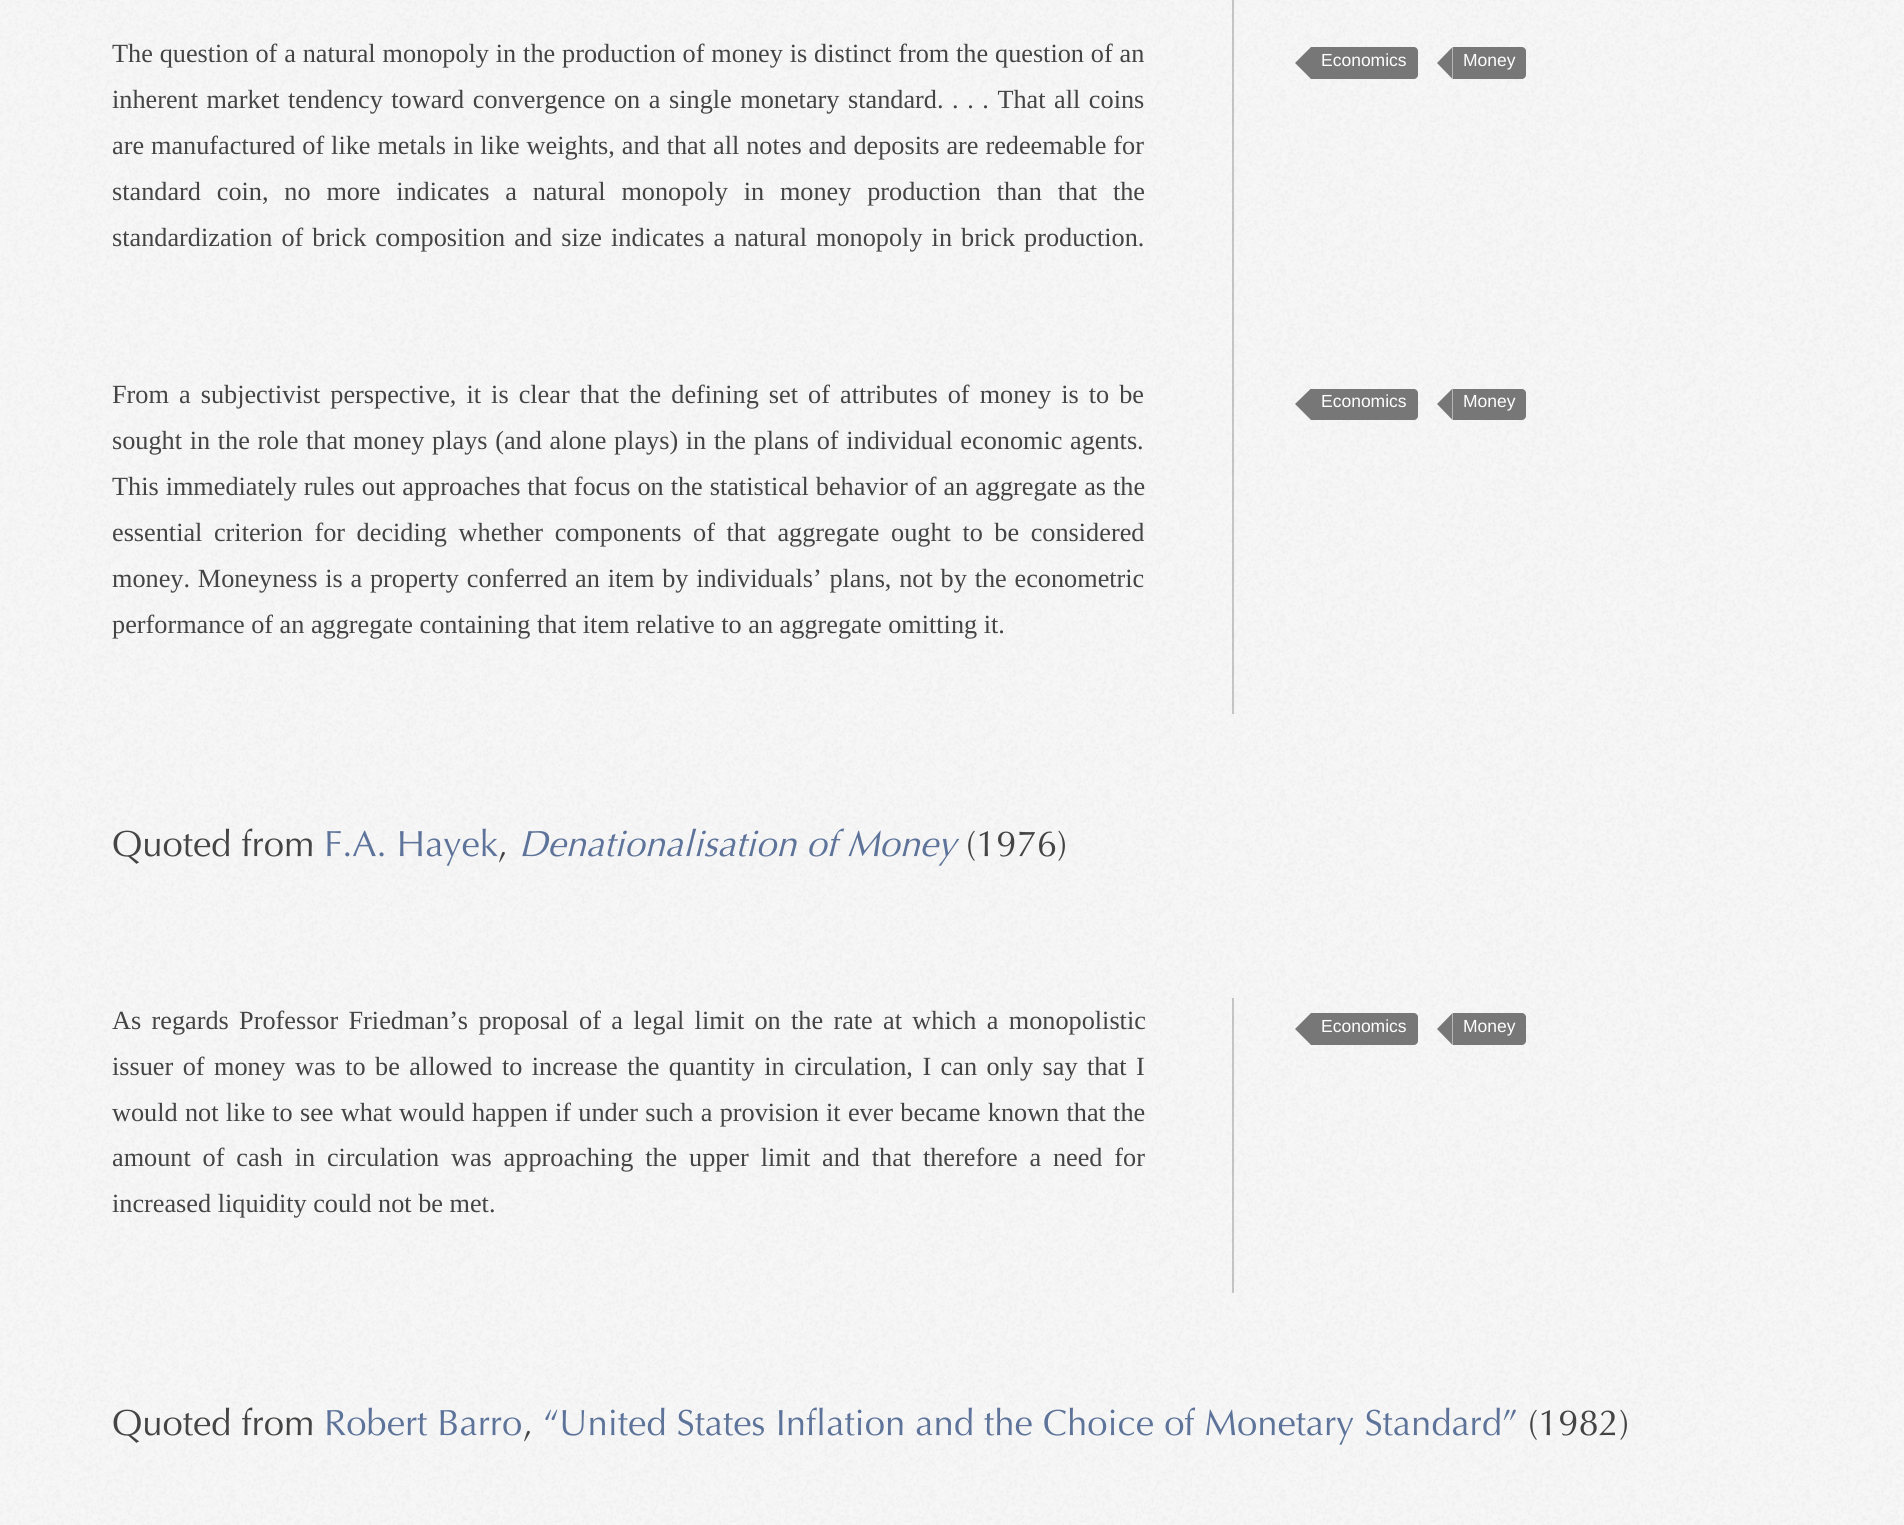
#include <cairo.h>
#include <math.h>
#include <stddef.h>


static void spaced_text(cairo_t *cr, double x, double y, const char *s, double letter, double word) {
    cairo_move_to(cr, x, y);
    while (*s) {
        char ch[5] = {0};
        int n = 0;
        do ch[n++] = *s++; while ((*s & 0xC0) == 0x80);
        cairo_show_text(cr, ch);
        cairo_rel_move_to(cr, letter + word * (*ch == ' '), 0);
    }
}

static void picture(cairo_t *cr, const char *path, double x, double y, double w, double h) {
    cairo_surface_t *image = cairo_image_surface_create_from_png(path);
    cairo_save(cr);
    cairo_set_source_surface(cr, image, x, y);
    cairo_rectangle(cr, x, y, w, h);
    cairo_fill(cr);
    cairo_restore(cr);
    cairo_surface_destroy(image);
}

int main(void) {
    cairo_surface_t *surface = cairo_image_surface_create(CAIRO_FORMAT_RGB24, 1904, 1525);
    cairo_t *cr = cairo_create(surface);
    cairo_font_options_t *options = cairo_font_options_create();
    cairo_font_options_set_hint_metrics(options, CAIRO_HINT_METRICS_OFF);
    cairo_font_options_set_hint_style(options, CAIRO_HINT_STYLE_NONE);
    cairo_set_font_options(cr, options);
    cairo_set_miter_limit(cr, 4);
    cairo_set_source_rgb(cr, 0.965, 0.965, 0.965);
    cairo_paint(cr);
    picture(cr, "img1.png", 0, 0, 1904, 1525);
    cairo_set_source_rgba(cr, 0, 0, 0, 0.2);
    cairo_rectangle(cr, 1232, 0, 2, 32);
    cairo_fill(cr);
    cairo_rectangle(cr, 1232, 32, 2, 341);
    cairo_fill(cr);
    cairo_select_font_face(cr, "Liberation Serif", CAIRO_FONT_SLANT_NORMAL, CAIRO_FONT_WEIGHT_NORMAL);
    cairo_set_font_size(cr, 26.25);
    cairo_set_source_rgb(cr, 0.267, 0.267, 0.267);
    spaced_text(cr, 112, 62, "The question of a natural monopoly in the production of money is distinct from the question of an", 0, 0.3);
    spaced_text(cr, 112, 108, "inherent market tendency toward convergence on a single monetary standard. . . . That all coins", 0, 2);
    spaced_text(cr, 112, 154, "are manufactured of like metals in like weights, and that all notes and deposits are redeemable for", 0, 0.4);
    spaced_text(cr, 112, 200, "standard coin, no more indicates a natural monopoly in money production than that the", 0, 9.25);
    spaced_text(cr, 112, 246, "standardization of brick composition and size indicates a natural monopoly in brick production.", 0, 2.5);
    cairo_set_source_rgb(cr, 0.467, 0.467, 0.467);
    cairo_new_path(cr);
    cairo_move_to(cr, 1311, 47);
    cairo_line_to(cr, 1414, 47);
    cairo_curve_to(cr, 1416, 47, 1418, 49, 1418, 51);
    cairo_line_to(cr, 1418, 75);
    cairo_curve_to(cr, 1418, 77, 1416, 79, 1414, 79);
    cairo_line_to(cr, 1311, 79);
    cairo_close_path(cr);
    cairo_fill(cr);
    cairo_new_path(cr);
    cairo_move_to(cr, 1311, 47);
    cairo_line_to(cr, 1311, 79);
    cairo_line_to(cr, 1295, 63);
    cairo_close_path(cr);
    cairo_fill(cr);
    cairo_select_font_face(cr, "Liberation Sans", CAIRO_FONT_SLANT_NORMAL, CAIRO_FONT_WEIGHT_NORMAL);
    cairo_set_font_size(cr, 17.5);
    cairo_set_source_rgb(cr, 1, 1, 1);
    cairo_move_to(cr, 1321, 66);
    cairo_show_text(cr, "Economics");
    cairo_set_source_rgb(cr, 0.467, 0.467, 0.467);
    cairo_new_path(cr);
    cairo_move_to(cr, 1453, 47);
    cairo_line_to(cr, 1522, 47);
    cairo_curve_to(cr, 1524, 47, 1526, 49, 1526, 51);
    cairo_line_to(cr, 1526, 75);
    cairo_curve_to(cr, 1526, 77, 1524, 79, 1522, 79);
    cairo_line_to(cr, 1453, 79);
    cairo_close_path(cr);
    cairo_fill(cr);
    cairo_new_path(cr);
    cairo_move_to(cr, 1452.5, 47);
    cairo_line_to(cr, 1452.5, 79);
    cairo_line_to(cr, 1437, 63);
    cairo_close_path(cr);
    cairo_fill(cr);
    cairo_set_source_rgb(cr, 1, 1, 1);
    cairo_move_to(cr, 1463, 66);
    cairo_show_text(cr, "Money");
    cairo_set_source_rgba(cr, 0, 0, 0, 0.2);
    cairo_rectangle(cr, 1232, 373, 2, 341);
    cairo_fill(cr);
    cairo_select_font_face(cr, "Liberation Serif", CAIRO_FONT_SLANT_NORMAL, CAIRO_FONT_WEIGHT_NORMAL);
    cairo_set_font_size(cr, 26.25);
    cairo_set_source_rgb(cr, 0.267, 0.267, 0.267);
    spaced_text(cr, 112, 403, "From a subjectivist perspective, it is clear that the defining set of attributes of money is to be", 0, 3.5);
    spaced_text(cr, 112, 449, "sought in the role that money plays (and alone plays) in the plans of individual economic agents.", 0, 1.1);
    spaced_text(cr, 112, 495, "This immediately rules out approaches that focus on the statistical behavior of an aggregate as the", 0, 0.4);
    spaced_text(cr, 112, 541, "essential criterion for deciding whether components of that aggregate ought to be considered", 0, 5);
    spaced_text(cr, 112, 587, "money. Moneyness is a property conferred an item by individuals’ plans, not by the econometric", 0, 1.25);
    cairo_move_to(cr, 112, 633);
    cairo_show_text(cr, "performance of an aggregate containing that item relative to an aggregate omitting it.");
    cairo_set_source_rgb(cr, 0.467, 0.467, 0.467);
    cairo_new_path(cr);
    cairo_move_to(cr, 1311, 389);
    cairo_line_to(cr, 1414, 389);
    cairo_curve_to(cr, 1416, 389, 1418, 391, 1418, 393);
    cairo_line_to(cr, 1418, 416);
    cairo_curve_to(cr, 1418, 418, 1416, 420, 1414, 420);
    cairo_line_to(cr, 1311, 420);
    cairo_close_path(cr);
    cairo_fill(cr);
    cairo_new_path(cr);
    cairo_move_to(cr, 1311, 388.5);
    cairo_line_to(cr, 1311, 420);
    cairo_line_to(cr, 1295, 404);
    cairo_close_path(cr);
    cairo_fill(cr);
    cairo_select_font_face(cr, "Liberation Sans", CAIRO_FONT_SLANT_NORMAL, CAIRO_FONT_WEIGHT_NORMAL);
    cairo_set_font_size(cr, 17.5);
    cairo_set_source_rgb(cr, 1, 1, 1);
    cairo_move_to(cr, 1321, 407);
    cairo_show_text(cr, "Economics");
    cairo_set_source_rgb(cr, 0.467, 0.467, 0.467);
    cairo_new_path(cr);
    cairo_move_to(cr, 1453, 389);
    cairo_line_to(cr, 1522, 389);
    cairo_curve_to(cr, 1524, 389, 1526, 391, 1526, 393);
    cairo_line_to(cr, 1526, 416);
    cairo_curve_to(cr, 1526, 418, 1524, 420, 1522, 420);
    cairo_line_to(cr, 1453, 420);
    cairo_close_path(cr);
    cairo_fill(cr);
    cairo_new_path(cr);
    cairo_move_to(cr, 1452.5, 388.5);
    cairo_line_to(cr, 1452.5, 420);
    cairo_line_to(cr, 1437, 404);
    cairo_close_path(cr);
    cairo_fill(cr);
    cairo_set_source_rgb(cr, 1, 1, 1);
    cairo_move_to(cr, 1463, 407);
    cairo_show_text(cr, "Money");
    cairo_select_font_face(cr, "Optima", CAIRO_FONT_SLANT_NORMAL, CAIRO_FONT_WEIGHT_NORMAL);
    cairo_set_font_size(cr, 36.4);
    cairo_set_source_rgb(cr, 0.267, 0.267, 0.267);
    cairo_move_to(cr, 112, 856);
    cairo_show_text(cr, "Quoted from");
    cairo_set_source_rgb(cr, 0.365, 0.451, 0.6);
    cairo_move_to(cr, 324, 856);
    cairo_show_text(cr, "F.A. Hayek");
    cairo_set_source_rgb(cr, 0.267, 0.267, 0.267);
    cairo_move_to(cr, 498, 856);
    cairo_show_text(cr, ",");
    cairo_select_font_face(cr, "Optima", CAIRO_FONT_SLANT_ITALIC, CAIRO_FONT_WEIGHT_NORMAL);
    cairo_set_source_rgb(cr, 0.365, 0.451, 0.6);
    cairo_move_to(cr, 519, 856);
    cairo_show_text(cr, "Denationalisation of Money");
    cairo_select_font_face(cr, "Optima", CAIRO_FONT_SLANT_NORMAL, CAIRO_FONT_WEIGHT_NORMAL);
    cairo_set_source_rgb(cr, 0.267, 0.267, 0.267);
    cairo_move_to(cr, 966, 856);
    cairo_show_text(cr, "(1976)");
    cairo_set_source_rgba(cr, 0, 0, 0, 0.2);
    cairo_rectangle(cr, 1232, 998, 2, 295);
    cairo_fill(cr);
    cairo_select_font_face(cr, "Liberation Serif", CAIRO_FONT_SLANT_NORMAL, CAIRO_FONT_WEIGHT_NORMAL);
    cairo_set_font_size(cr, 26.25);
    cairo_set_source_rgb(cr, 0.267, 0.267, 0.267);
    spaced_text(cr, 112, 1029, "As regards Professor Friedman’s proposal of a legal limit on the rate at which a monopolistic", 0, 3.75);
    spaced_text(cr, 112, 1075, "issuer of money was to be allowed to increase the quantity in circulation, I can only say that I", 0, 2.9);
    spaced_text(cr, 112, 1121, "would not like to see what would happen if under such a provision it ever became known that the", 0, 0.7);
    spaced_text(cr, 112, 1166, "amount of cash in circulation was approaching the upper limit and that therefore a need for", 0, 5.25);
    cairo_move_to(cr, 112, 1212);
    cairo_show_text(cr, "increased liquidity could not be met.");
    cairo_set_source_rgb(cr, 0.467, 0.467, 0.467);
    cairo_new_path(cr);
    cairo_move_to(cr, 1311, 1013);
    cairo_line_to(cr, 1414, 1013);
    cairo_curve_to(cr, 1416, 1013, 1418, 1015, 1418, 1017);
    cairo_line_to(cr, 1418, 1041);
    cairo_curve_to(cr, 1418, 1043, 1416, 1045, 1414, 1045);
    cairo_line_to(cr, 1311, 1045);
    cairo_close_path(cr);
    cairo_fill(cr);
    cairo_new_path(cr);
    cairo_move_to(cr, 1311, 1013);
    cairo_line_to(cr, 1311, 1045);
    cairo_line_to(cr, 1295, 1029);
    cairo_close_path(cr);
    cairo_fill(cr);
    cairo_select_font_face(cr, "Liberation Sans", CAIRO_FONT_SLANT_NORMAL, CAIRO_FONT_WEIGHT_NORMAL);
    cairo_set_font_size(cr, 17.5);
    cairo_set_source_rgb(cr, 1, 1, 1);
    cairo_move_to(cr, 1321, 1032);
    cairo_show_text(cr, "Economics");
    cairo_set_source_rgb(cr, 0.467, 0.467, 0.467);
    cairo_new_path(cr);
    cairo_move_to(cr, 1453, 1013);
    cairo_line_to(cr, 1522, 1013);
    cairo_curve_to(cr, 1524, 1013, 1526, 1015, 1526, 1017);
    cairo_line_to(cr, 1526, 1041);
    cairo_curve_to(cr, 1526, 1043, 1524, 1045, 1522, 1045);
    cairo_line_to(cr, 1453, 1045);
    cairo_close_path(cr);
    cairo_fill(cr);
    cairo_new_path(cr);
    cairo_move_to(cr, 1452.5, 1013);
    cairo_line_to(cr, 1452.5, 1045);
    cairo_line_to(cr, 1437, 1029);
    cairo_close_path(cr);
    cairo_fill(cr);
    cairo_set_source_rgb(cr, 1, 1, 1);
    cairo_move_to(cr, 1463, 1032);
    cairo_show_text(cr, "Money");
    cairo_select_font_face(cr, "Optima", CAIRO_FONT_SLANT_NORMAL, CAIRO_FONT_WEIGHT_NORMAL);
    cairo_set_font_size(cr, 36.4);
    cairo_set_source_rgb(cr, 0.267, 0.267, 0.267);
    cairo_move_to(cr, 112, 1435);
    cairo_show_text(cr, "Quoted from");
    cairo_set_source_rgb(cr, 0.365, 0.451, 0.6);
    cairo_move_to(cr, 324, 1435);
    cairo_show_text(cr, "Robert Barro");
    cairo_set_source_rgb(cr, 0.267, 0.267, 0.267);
    cairo_move_to(cr, 523, 1435);
    cairo_show_text(cr, ",");
    cairo_set_source_rgb(cr, 0.365, 0.451, 0.6);
    cairo_move_to(cr, 543, 1435);
    cairo_show_text(cr, "“United States Inflation and the Choice of Monetary Standard”");
    cairo_set_source_rgb(cr, 0.267, 0.267, 0.267);
    cairo_move_to(cr, 1528, 1435);
    cairo_show_text(cr, "(1982)");
    cairo_surface_write_to_png(surface, "page.png");
    cairo_font_options_destroy(options);
    cairo_destroy(cr);
    cairo_surface_destroy(surface);
    return 0;
}
